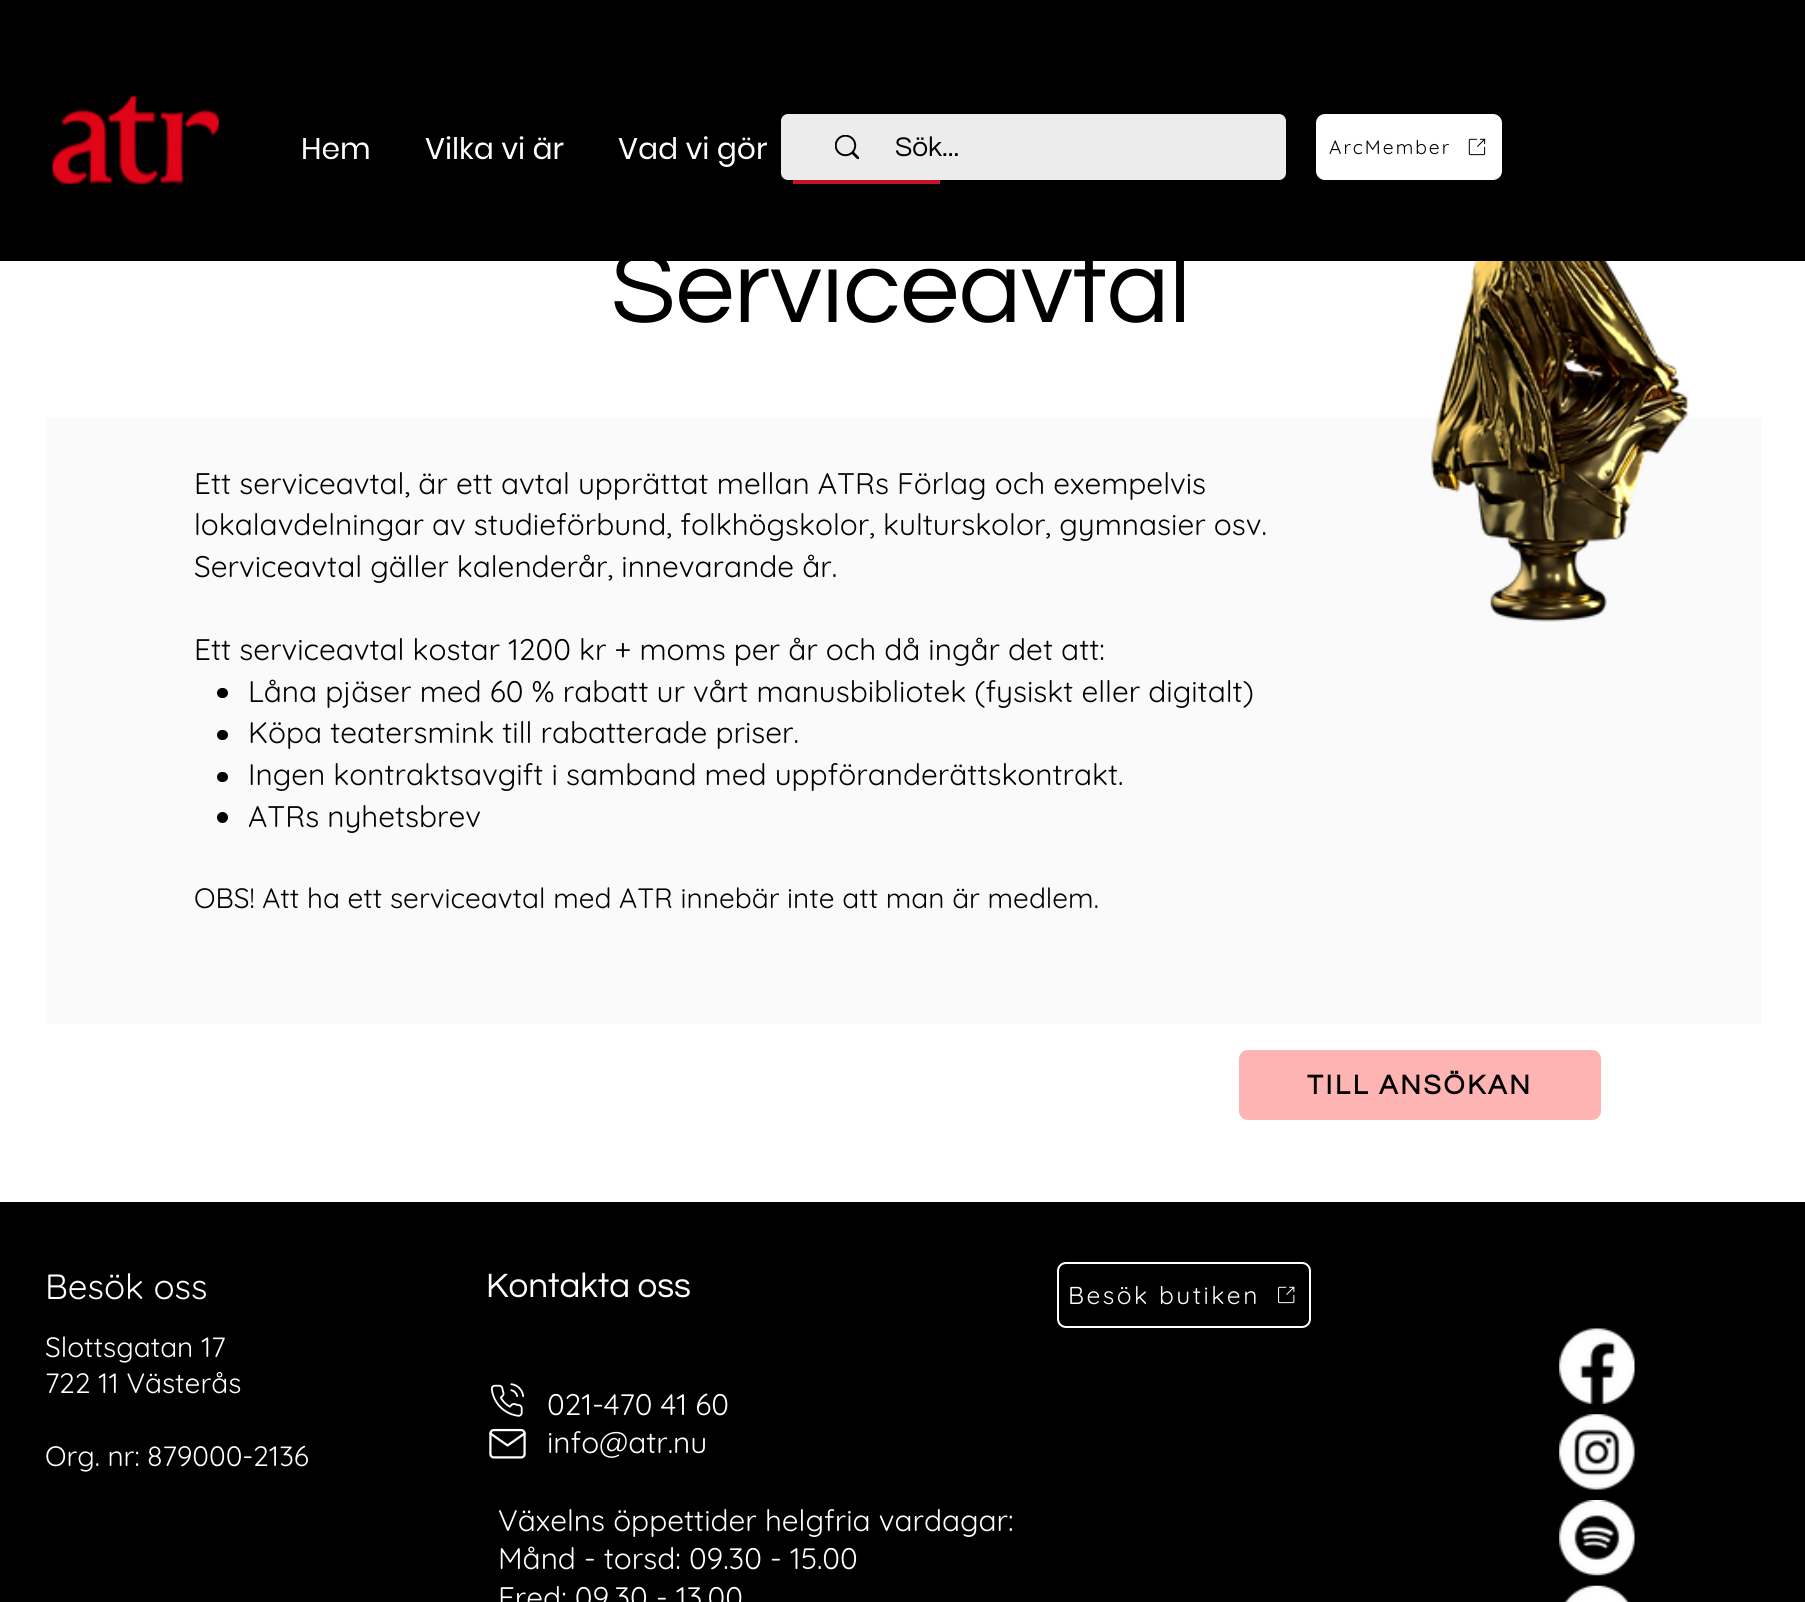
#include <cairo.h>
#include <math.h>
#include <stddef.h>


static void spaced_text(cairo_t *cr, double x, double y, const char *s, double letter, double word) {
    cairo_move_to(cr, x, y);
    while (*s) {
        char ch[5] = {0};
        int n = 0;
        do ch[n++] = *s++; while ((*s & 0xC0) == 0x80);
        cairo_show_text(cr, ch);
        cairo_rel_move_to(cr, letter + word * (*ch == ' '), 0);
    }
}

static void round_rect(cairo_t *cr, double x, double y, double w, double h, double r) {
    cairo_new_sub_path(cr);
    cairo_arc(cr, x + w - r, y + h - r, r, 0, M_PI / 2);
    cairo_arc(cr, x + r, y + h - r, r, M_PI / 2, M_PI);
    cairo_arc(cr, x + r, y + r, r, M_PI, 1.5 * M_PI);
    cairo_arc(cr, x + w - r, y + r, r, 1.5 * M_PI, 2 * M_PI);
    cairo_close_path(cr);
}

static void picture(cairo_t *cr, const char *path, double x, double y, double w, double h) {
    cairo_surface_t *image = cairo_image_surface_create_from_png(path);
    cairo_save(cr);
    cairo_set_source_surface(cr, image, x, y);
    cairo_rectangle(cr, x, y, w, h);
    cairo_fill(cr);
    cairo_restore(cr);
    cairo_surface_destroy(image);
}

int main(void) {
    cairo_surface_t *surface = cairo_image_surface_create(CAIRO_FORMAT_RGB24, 1805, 1602);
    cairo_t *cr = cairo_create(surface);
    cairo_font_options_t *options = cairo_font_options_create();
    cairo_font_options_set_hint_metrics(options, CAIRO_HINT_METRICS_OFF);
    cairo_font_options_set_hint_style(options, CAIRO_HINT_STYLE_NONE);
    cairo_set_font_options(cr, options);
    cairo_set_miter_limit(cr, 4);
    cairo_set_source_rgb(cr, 1, 1, 1);
    cairo_paint(cr);
    cairo_set_source_rgb(cr, 0, 0, 0);
    cairo_rectangle(cr, 0, 0, 1805, 261);
    cairo_fill(cr);
    picture(cr, "img1.png", 52, 96, 167, 88);
    cairo_select_font_face(cr, "Poppins", CAIRO_FONT_SLANT_NORMAL, CAIRO_FONT_WEIGHT_NORMAL);
    cairo_set_font_size(cr, 29.75);
    cairo_set_source_rgb(cr, 1, 1, 1);
    cairo_move_to(cr, 301, 159);
    cairo_show_text(cr, "Hem");
    cairo_move_to(cr, 425, 159);
    cairo_show_text(cr, "Vilka vi är");
    cairo_move_to(cr, 618, 159);
    cairo_show_text(cr, "Vad vi gör");
    cairo_set_source_rgb(cr, 0.769, 0.075, 0.153);
    cairo_rectangle(cr, 793, 180, 147, 4);
    cairo_fill(cr);
    cairo_set_source_rgb(cr, 0.929, 0.925, 0.925);
    round_rect(cr, 781, 114, 505, 66, 7);
    cairo_fill(cr);
    picture(cr, "img2.png", 835, 135, 24, 24);
    cairo_select_font_face(cr, "Questrial", CAIRO_FONT_SLANT_NORMAL, CAIRO_FONT_WEIGHT_NORMAL);
    cairo_set_font_size(cr, 28);
    cairo_set_source_rgb(cr, 0, 0, 0);
    cairo_move_to(cr, 895, 156);
    cairo_show_text(cr, "Sök...");
    cairo_set_source_rgb(cr, 1, 1, 1);
    round_rect(cr, 1316, 114, 186, 66, 9);
    cairo_fill(cr);
    cairo_select_font_face(cr, "Quicksand", CAIRO_FONT_SLANT_NORMAL, CAIRO_FONT_WEIGHT_NORMAL);
    cairo_set_font_size(cr, 19.25);
    cairo_set_source_rgb(cr, 0, 0, 0);
    spaced_text(cr, 1329, 154, "ArcMember", 2, 0);
    picture(cr, "img3.png", 1468, 138, 18, 18);
    cairo_select_font_face(cr, "Questrial", CAIRO_FONT_SLANT_NORMAL, CAIRO_FONT_WEIGHT_NORMAL);
    cairo_set_font_size(cr, 105);
    cairo_move_to(cr, 611, 322);
    cairo_show_text(cr, "Serviceavtal");
    cairo_set_source_rgb(cr, 0.98, 0.98, 0.98);
    cairo_rectangle(cr, 46, 418, 1715, 606);
    cairo_fill(cr);
    picture(cr, "img4.png", 1431, 261, 258, 361);
    cairo_select_font_face(cr, "Quicksand", CAIRO_FONT_SLANT_NORMAL, CAIRO_FONT_WEIGHT_NORMAL);
    cairo_set_font_size(cr, 29.75);
    cairo_set_source_rgb(cr, 0, 0, 0);
    cairo_move_to(cr, 194, 494);
    cairo_show_text(cr, "Ett serviceavtal, är ett avtal upprättat mellan ATRs Förlag och exempelvis");
    cairo_move_to(cr, 194, 535);
    cairo_show_text(cr, "lokalavdelningar av studieförbund, folkhögskolor, kulturskolor, gymnasier osv.");
    cairo_move_to(cr, 194, 577);
    cairo_show_text(cr, "Serviceavtal gäller kalenderår, innevarande år.");
    cairo_move_to(cr, 194, 660);
    cairo_show_text(cr, "Ett serviceavtal kostar 1200 kr + moms per år och då ingår det att:");
    round_rect(cr, 217, 688, 11, 10, 5);
    cairo_fill(cr);
    cairo_move_to(cr, 248, 702);
    cairo_show_text(cr, "Låna pjäser med 60 % rabatt ur vårt manusbibliotek (fysiskt eller digitalt)");
    round_rect(cr, 217, 730, 11, 10, 5);
    cairo_fill(cr);
    cairo_move_to(cr, 248, 743);
    cairo_show_text(cr, "Köpa teatersmink till rabatterade priser.");
    round_rect(cr, 217, 772, 11, 10, 5);
    cairo_fill(cr);
    cairo_move_to(cr, 248, 785);
    cairo_show_text(cr, "Ingen kontraktsavgift i samband med uppföranderättskontrakt.");
    cairo_new_path(cr);
    cairo_arc(cr, 222.5, 817.5, 5.5, 0, 2 * M_PI);
    cairo_fill(cr);
    cairo_move_to(cr, 248, 827);
    cairo_show_text(cr, "ATRs nyhetsbrev");
    cairo_set_font_size(cr, 28);
    cairo_move_to(cr, 194, 908);
    cairo_show_text(cr, "OBS! Att ha ett serviceavtal med ATR innebär inte att man är medlem.");
    cairo_set_source_rgb(cr, 1, 0.706, 0.706);
    round_rect(cr, 1239, 1050, 362, 70, 9);
    cairo_fill(cr);
    cairo_select_font_face(cr, "Questrial", CAIRO_FONT_SLANT_NORMAL, CAIRO_FONT_WEIGHT_BOLD);
    cairo_set_source_rgb(cr, 0, 0, 0);
    spaced_text(cr, 1307, 1094, "TILL ANSÖKAN", 2.75, 0);
    cairo_rectangle(cr, 0, 1202, 1805, 400);
    cairo_fill(cr);
    cairo_select_font_face(cr, "Quicksand", CAIRO_FONT_SLANT_NORMAL, CAIRO_FONT_WEIGHT_NORMAL);
    cairo_set_font_size(cr, 35);
    cairo_set_source_rgb(cr, 1, 1, 1);
    cairo_move_to(cr, 45, 1299);
    cairo_show_text(cr, "Besök oss");
    cairo_set_font_size(cr, 28);
    cairo_move_to(cr, 45, 1357);
    cairo_show_text(cr, "Slottsgatan 17");
    cairo_move_to(cr, 45, 1393);
    cairo_show_text(cr, "722 11 Västerås");
    cairo_move_to(cr, 45, 1466);
    cairo_show_text(cr, "Org. nr: 879000-2136");
    cairo_select_font_face(cr, "Questrial", CAIRO_FONT_SLANT_NORMAL, CAIRO_FONT_WEIGHT_NORMAL);
    cairo_set_font_size(cr, 35);
    cairo_move_to(cr, 486, 1297);
    cairo_show_text(cr, "Kontakta oss");
    round_rect(cr, 1058, 1263, 252, 64, 8);
    cairo_stroke(cr);
    cairo_select_font_face(cr, "Quicksand", CAIRO_FONT_SLANT_NORMAL, CAIRO_FONT_WEIGHT_NORMAL);
    cairo_set_font_size(cr, 24.5);
    spaced_text(cr, 1068, 1304, "Besök butiken", 2.5, 0);
    picture(cr, "img5.png", 1278, 1286, 17, 18);
    picture(cr, "img6.png", 490, 1383, 35, 34);
    picture(cr, "img7.png", 1559, 1328, 76, 76);
    picture(cr, "img8.png", 1559, 1414, 76, 76);
    picture(cr, "img9.png", 1559, 1500, 76, 76);
    picture(cr, "img10.png", 1564, 1585, 66, 17);
    cairo_set_font_size(cr, 29.75);
    cairo_move_to(cr, 547, 1415);
    cairo_show_text(cr, "021-470 41 60");
    cairo_move_to(cr, 547, 1453);
    cairo_show_text(cr, "info@atr.nu");
    cairo_move_to(cr, 498, 1531);
    cairo_show_text(cr, "Växelns öppettider helgfria vardagar:");
    cairo_move_to(cr, 498, 1569);
    cairo_show_text(cr, "Månd - torsd: 09.30 - 15.00");
    cairo_move_to(cr, 498, 1608);
    cairo_show_text(cr, "Fred: 09.30 - 13.00");
    picture(cr, "img11.png", 489, 1428, 37, 31);
    cairo_surface_write_to_png(surface, "page.png");
    cairo_font_options_destroy(options);
    cairo_destroy(cr);
    cairo_surface_destroy(surface);
    return 0;
}
